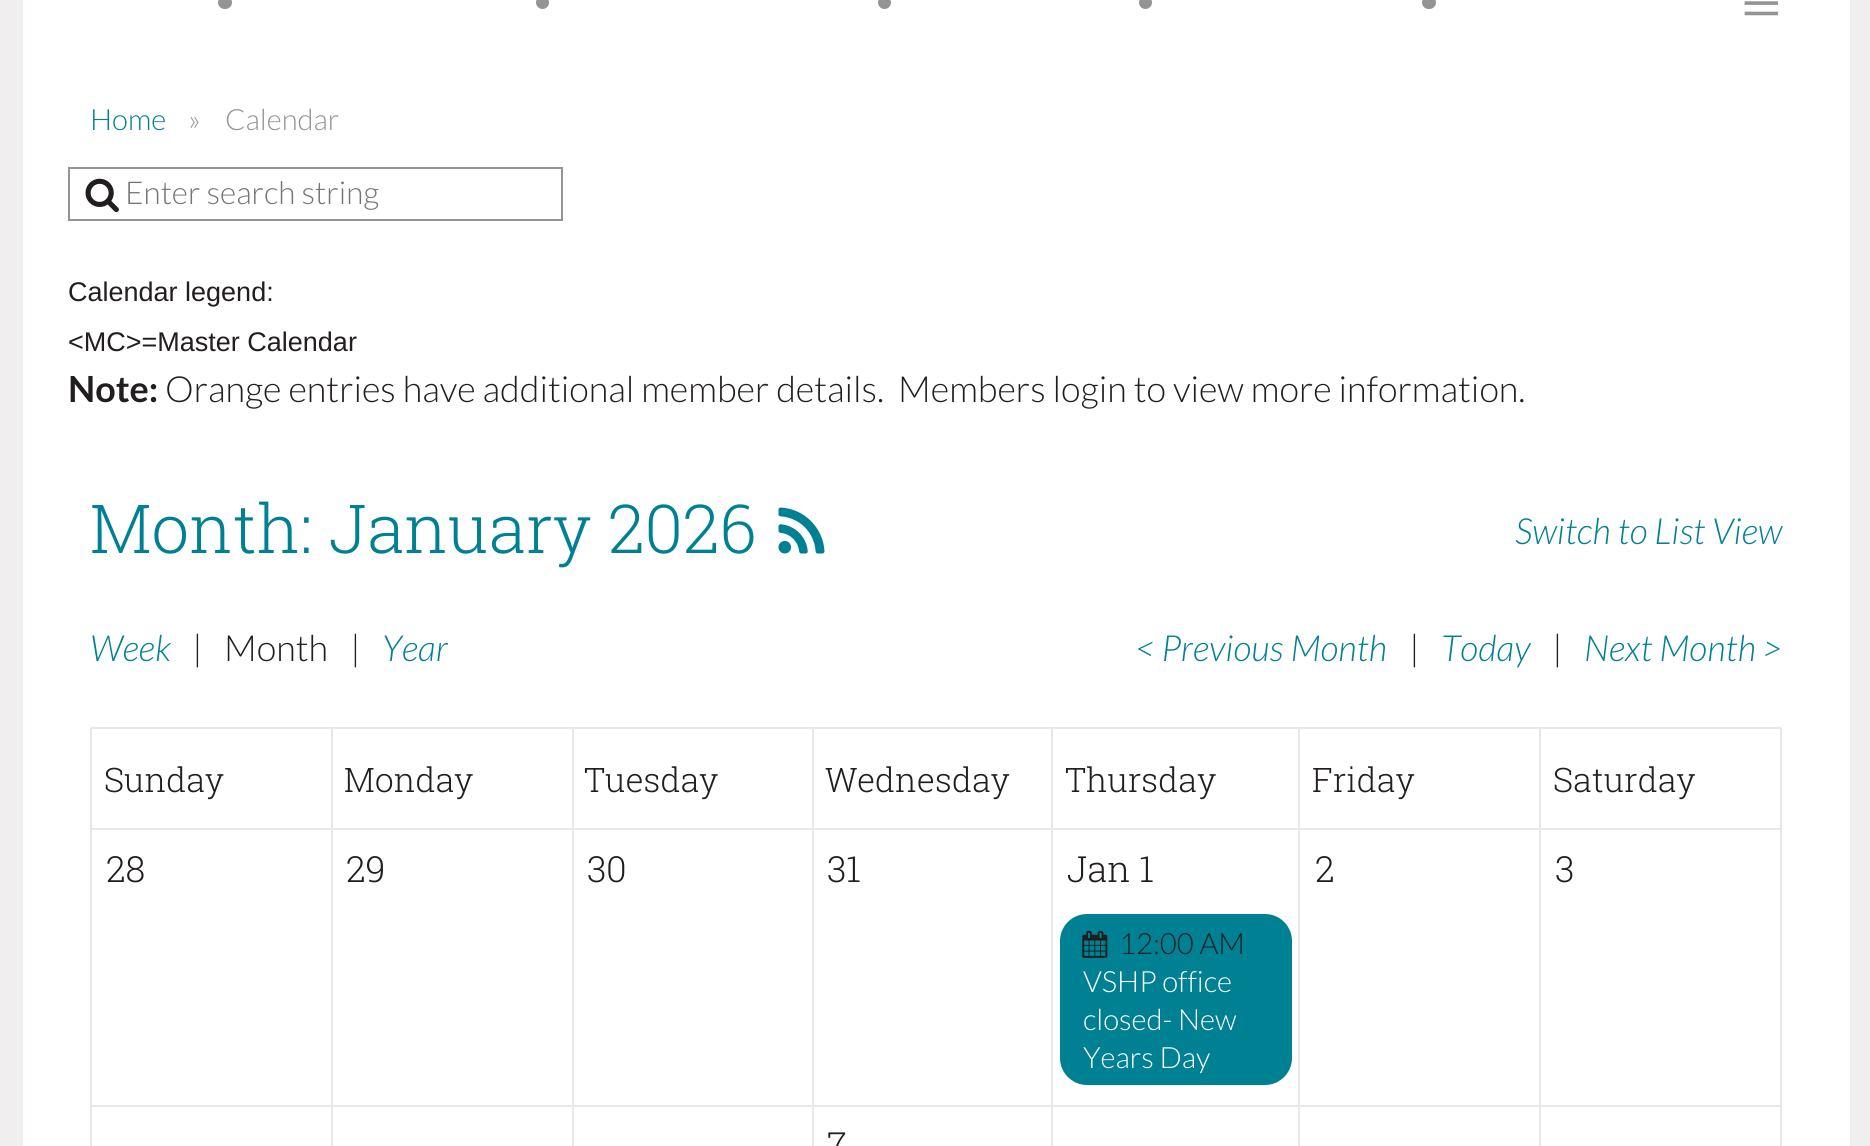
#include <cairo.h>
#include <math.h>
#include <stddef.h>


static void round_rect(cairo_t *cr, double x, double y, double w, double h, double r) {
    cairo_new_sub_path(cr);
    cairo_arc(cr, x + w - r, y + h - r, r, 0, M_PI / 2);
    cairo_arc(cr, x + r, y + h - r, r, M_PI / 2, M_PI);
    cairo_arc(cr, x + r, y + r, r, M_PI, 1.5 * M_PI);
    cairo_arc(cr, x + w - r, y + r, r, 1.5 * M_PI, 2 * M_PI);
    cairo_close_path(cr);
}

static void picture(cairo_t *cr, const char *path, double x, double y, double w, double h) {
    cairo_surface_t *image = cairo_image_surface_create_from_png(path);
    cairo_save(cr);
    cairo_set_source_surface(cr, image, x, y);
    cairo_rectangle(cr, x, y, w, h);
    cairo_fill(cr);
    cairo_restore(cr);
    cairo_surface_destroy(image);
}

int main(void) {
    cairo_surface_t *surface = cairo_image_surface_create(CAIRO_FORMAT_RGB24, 1870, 1146);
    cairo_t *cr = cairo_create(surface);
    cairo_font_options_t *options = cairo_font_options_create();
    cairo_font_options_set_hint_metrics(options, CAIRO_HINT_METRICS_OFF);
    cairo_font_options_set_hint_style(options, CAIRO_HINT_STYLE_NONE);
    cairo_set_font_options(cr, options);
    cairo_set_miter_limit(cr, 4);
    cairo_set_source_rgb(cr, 0.941, 0.933, 0.933);
    cairo_paint(cr);
    cairo_set_source_rgb(cr, 1, 1, 1);
    cairo_rectangle(cr, 23, 0, 1827, 1146);
    cairo_fill(cr);
    cairo_set_source_rgb(cr, 0.58, 0.58, 0.576);
    round_rect(cr, 218, -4, 14, 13, 6.5);
    cairo_fill(cr);
    cairo_arc(cr, 542.5, 2.5, 6.5, 0, 2 * M_PI);
    cairo_fill(cr);
    cairo_arc(cr, 884.5, 2.5, 6.5, 0, 2 * M_PI);
    cairo_fill(cr);
    cairo_arc(cr, 1145.5, 2.5, 6.5, 0, 2 * M_PI);
    cairo_fill(cr);
    round_rect(cr, 1422, -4, 14, 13, 6.5);
    cairo_fill(cr);
    cairo_select_font_face(cr, "Liberation Serif", CAIRO_FONT_SLANT_NORMAL, CAIRO_FONT_WEIGHT_NORMAL);
    cairo_set_font_size(cr, 72);
    cairo_move_to(cr, 1741, 27);
    cairo_show_text(cr, "≡");
    cairo_select_font_face(cr, "Lato Light", CAIRO_FONT_SLANT_NORMAL, CAIRO_FONT_WEIGHT_NORMAL);
    cairo_set_font_size(cr, 29.25);
    cairo_set_source_rgb(cr, 0, 0.502, 0.576);
    cairo_move_to(cr, 90, 130);
    cairo_show_text(cr, "Home");
    cairo_set_source_rgb(cr, 0.58, 0.58, 0.576);
    cairo_move_to(cr, 188, 130);
    cairo_show_text(cr, "»");
    cairo_move_to(cr, 225, 130);
    cairo_show_text(cr, "Calendar");
    cairo_rectangle(cr, 69, 168, 493, 52);
    cairo_stroke(cr);
    picture(cr, "img1.png", 85, 178, 34, 35);
    cairo_set_font_size(cr, 31.5);
    cairo_set_source_rgb(cr, 0.459, 0.459, 0.459);
    cairo_move_to(cr, 125, 204);
    cairo_show_text(cr, "Enter search string");
    cairo_select_font_face(cr, "Liberation Sans", CAIRO_FONT_SLANT_NORMAL, CAIRO_FONT_WEIGHT_NORMAL);
    cairo_set_font_size(cr, 27);
    cairo_set_source_rgb(cr, 0.133, 0.118, 0.122);
    cairo_move_to(cr, 68, 301);
    cairo_show_text(cr, "Calendar legend:");
    cairo_move_to(cr, 68, 351);
    cairo_show_text(cr, "<MC>=Master Calendar");
    cairo_select_font_face(cr, "Lato", CAIRO_FONT_SLANT_NORMAL, CAIRO_FONT_WEIGHT_BOLD);
    cairo_set_font_size(cr, 36);
    cairo_move_to(cr, 68, 402);
    cairo_show_text(cr, "Note:");
    cairo_select_font_face(cr, "Lato Light", CAIRO_FONT_SLANT_NORMAL, CAIRO_FONT_WEIGHT_NORMAL);
    cairo_move_to(cr, 165, 402);
    cairo_show_text(cr, "Orange entries have additional member details.  Members login to view more information.");
    cairo_select_font_face(cr, "Roboto Slab Light", CAIRO_FONT_SLANT_NORMAL, CAIRO_FONT_WEIGHT_NORMAL);
    cairo_set_font_size(cr, 67.5);
    cairo_set_source_rgb(cr, 0, 0.502, 0.576);
    cairo_move_to(cr, 90, 553);
    cairo_show_text(cr, "Month: January 2026");
    picture(cr, "img2.png", 778, 507, 47, 47);
    cairo_select_font_face(cr, "Lato Light", CAIRO_FONT_SLANT_ITALIC, CAIRO_FONT_WEIGHT_NORMAL);
    cairo_set_font_size(cr, 36);
    cairo_move_to(cr, 1515, 544);
    cairo_show_text(cr, "Switch to List View");
    cairo_move_to(cr, 90, 661);
    cairo_show_text(cr, "Week");
    cairo_select_font_face(cr, "Lato Light", CAIRO_FONT_SLANT_NORMAL, CAIRO_FONT_WEIGHT_NORMAL);
    cairo_set_source_rgb(cr, 0.133, 0.118, 0.122);
    cairo_move_to(cr, 192, 661);
    cairo_show_text(cr, "|");
    cairo_move_to(cr, 224, 661);
    cairo_show_text(cr, "Month");
    cairo_move_to(cr, 350, 661);
    cairo_show_text(cr, "|");
    cairo_select_font_face(cr, "Lato Light", CAIRO_FONT_SLANT_ITALIC, CAIRO_FONT_WEIGHT_NORMAL);
    cairo_set_source_rgb(cr, 0, 0.502, 0.576);
    cairo_move_to(cr, 382, 661);
    cairo_show_text(cr, "Year");
    cairo_move_to(cr, 1135, 661);
    cairo_show_text(cr, "< Previous Month");
    cairo_select_font_face(cr, "Lato Light", CAIRO_FONT_SLANT_NORMAL, CAIRO_FONT_WEIGHT_NORMAL);
    cairo_set_source_rgb(cr, 0.133, 0.118, 0.122);
    cairo_move_to(cr, 1409, 661);
    cairo_show_text(cr, "|");
    cairo_select_font_face(cr, "Lato Light", CAIRO_FONT_SLANT_ITALIC, CAIRO_FONT_WEIGHT_NORMAL);
    cairo_set_source_rgb(cr, 0, 0.502, 0.576);
    cairo_move_to(cr, 1441, 661);
    cairo_show_text(cr, "Today");
    cairo_select_font_face(cr, "Lato Light", CAIRO_FONT_SLANT_NORMAL, CAIRO_FONT_WEIGHT_NORMAL);
    cairo_set_source_rgb(cr, 0.133, 0.118, 0.122);
    cairo_move_to(cr, 1552, 661);
    cairo_show_text(cr, "|");
    cairo_select_font_face(cr, "Lato Light", CAIRO_FONT_SLANT_ITALIC, CAIRO_FONT_WEIGHT_NORMAL);
    cairo_set_source_rgb(cr, 0, 0.502, 0.576);
    cairo_move_to(cr, 1584, 661);
    cairo_show_text(cr, "Next Month >");
    cairo_set_source_rgb(cr, 0.91, 0.91, 0.91);
    cairo_rectangle(cr, 90, 727, 1692, 2);
    cairo_fill(cr);
    cairo_rectangle(cr, 1780, 727, 2, 419);
    cairo_fill(cr);
    cairo_rectangle(cr, 90, 727, 2, 419);
    cairo_fill(cr);
    cairo_select_font_face(cr, "Roboto Slab Light", CAIRO_FONT_SLANT_NORMAL, CAIRO_FONT_WEIGHT_NORMAL);
    cairo_set_font_size(cr, 33.75);
    cairo_set_source_rgb(cr, 0.133, 0.118, 0.122);
    cairo_move_to(cr, 104, 792);
    cairo_show_text(cr, "Sunday");
    cairo_move_to(cr, 344, 792);
    cairo_show_text(cr, "Monday");
    cairo_move_to(cr, 584, 792);
    cairo_show_text(cr, "Tuesday");
    cairo_move_to(cr, 825, 792);
    cairo_show_text(cr, "Wednesday");
    cairo_move_to(cr, 1065, 792);
    cairo_show_text(cr, "Thursday");
    cairo_move_to(cr, 1312, 792);
    cairo_show_text(cr, "Friday");
    cairo_move_to(cr, 1553, 792);
    cairo_show_text(cr, "Saturday");
    cairo_set_source_rgb(cr, 0.91, 0.91, 0.91);
    cairo_rectangle(cr, 90, 828, 1692, 2);
    cairo_fill(cr);
    cairo_rectangle(cr, 90, 1105, 1692, 2);
    cairo_fill(cr);
    cairo_rectangle(cr, 331, 905, 2, 241);
    cairo_fill(cr);
    cairo_rectangle(cr, 331, 727, 2, 180);
    cairo_fill(cr);
    cairo_set_font_size(cr, 36);
    cairo_set_source_rgb(cr, 0.133, 0.118, 0.122);
    cairo_move_to(cr, 106, 882);
    cairo_show_text(cr, "28");
    cairo_set_source_rgb(cr, 0.91, 0.91, 0.91);
    cairo_rectangle(cr, 572, 905, 2, 241);
    cairo_fill(cr);
    cairo_rectangle(cr, 572, 727, 2, 180);
    cairo_fill(cr);
    cairo_set_source_rgb(cr, 0.133, 0.118, 0.122);
    cairo_move_to(cr, 346, 882);
    cairo_show_text(cr, "29");
    cairo_set_source_rgb(cr, 0.91, 0.91, 0.91);
    cairo_rectangle(cr, 812, 905, 2, 241);
    cairo_fill(cr);
    cairo_rectangle(cr, 812, 727, 2, 180);
    cairo_fill(cr);
    cairo_set_source_rgb(cr, 0.133, 0.118, 0.122);
    cairo_move_to(cr, 587, 882);
    cairo_show_text(cr, "30");
    cairo_set_source_rgb(cr, 0.91, 0.91, 0.91);
    cairo_rectangle(cr, 1051, 905, 2, 241);
    cairo_fill(cr);
    cairo_rectangle(cr, 1051, 727, 2, 180);
    cairo_fill(cr);
    cairo_set_source_rgb(cr, 0.133, 0.118, 0.122);
    cairo_move_to(cr, 827, 882);
    cairo_show_text(cr, "31");
    cairo_set_source_rgb(cr, 0.91, 0.91, 0.91);
    cairo_rectangle(cr, 1298, 905, 2, 241);
    cairo_fill(cr);
    cairo_rectangle(cr, 1298, 727, 2, 180);
    cairo_fill(cr);
    cairo_set_source_rgb(cr, 0.133, 0.118, 0.122);
    cairo_move_to(cr, 1067, 882);
    cairo_show_text(cr, "Jan 1");
    cairo_set_source_rgb(cr, 0.91, 0.91, 0.91);
    cairo_rectangle(cr, 1539, 905, 2, 241);
    cairo_fill(cr);
    cairo_rectangle(cr, 1539, 727, 2, 180);
    cairo_fill(cr);
    cairo_set_source_rgb(cr, 0.133, 0.118, 0.122);
    cairo_move_to(cr, 1315, 882);
    cairo_show_text(cr, "2");
    cairo_move_to(cr, 1555, 882);
    cairo_show_text(cr, "3");
    cairo_set_source_rgb(cr, 0, 0.502, 0.576);
    round_rect(cr, 1060, 914, 232, 171, 27);
    cairo_fill(cr);
    picture(cr, "img3.png", 1082, 930, 26, 28);
    cairo_select_font_face(cr, "Lato Light", CAIRO_FONT_SLANT_NORMAL, CAIRO_FONT_WEIGHT_NORMAL);
    cairo_set_font_size(cr, 29.25);
    cairo_set_source_rgb(cr, 0.133, 0.118, 0.122);
    cairo_move_to(cr, 1119, 954);
    cairo_show_text(cr, "12:00 AM");
    cairo_set_source_rgb(cr, 1, 1, 1);
    cairo_move_to(cr, 1083, 992);
    cairo_show_text(cr, "VSHP office");
    cairo_move_to(cr, 1083, 1030);
    cairo_show_text(cr, "closed- New");
    cairo_move_to(cr, 1083, 1068);
    cairo_show_text(cr, "Years Day");
    cairo_select_font_face(cr, "Roboto Slab Light", CAIRO_FONT_SLANT_NORMAL, CAIRO_FONT_WEIGHT_NORMAL);
    cairo_set_font_size(cr, 36);
    cairo_set_source_rgb(cr, 0.133, 0.118, 0.122);
    cairo_move_to(cr, 827, 1158);
    cairo_show_text(cr, "7");
    cairo_surface_write_to_png(surface, "page.png");
    cairo_font_options_destroy(options);
    cairo_destroy(cr);
    cairo_surface_destroy(surface);
    return 0;
}
